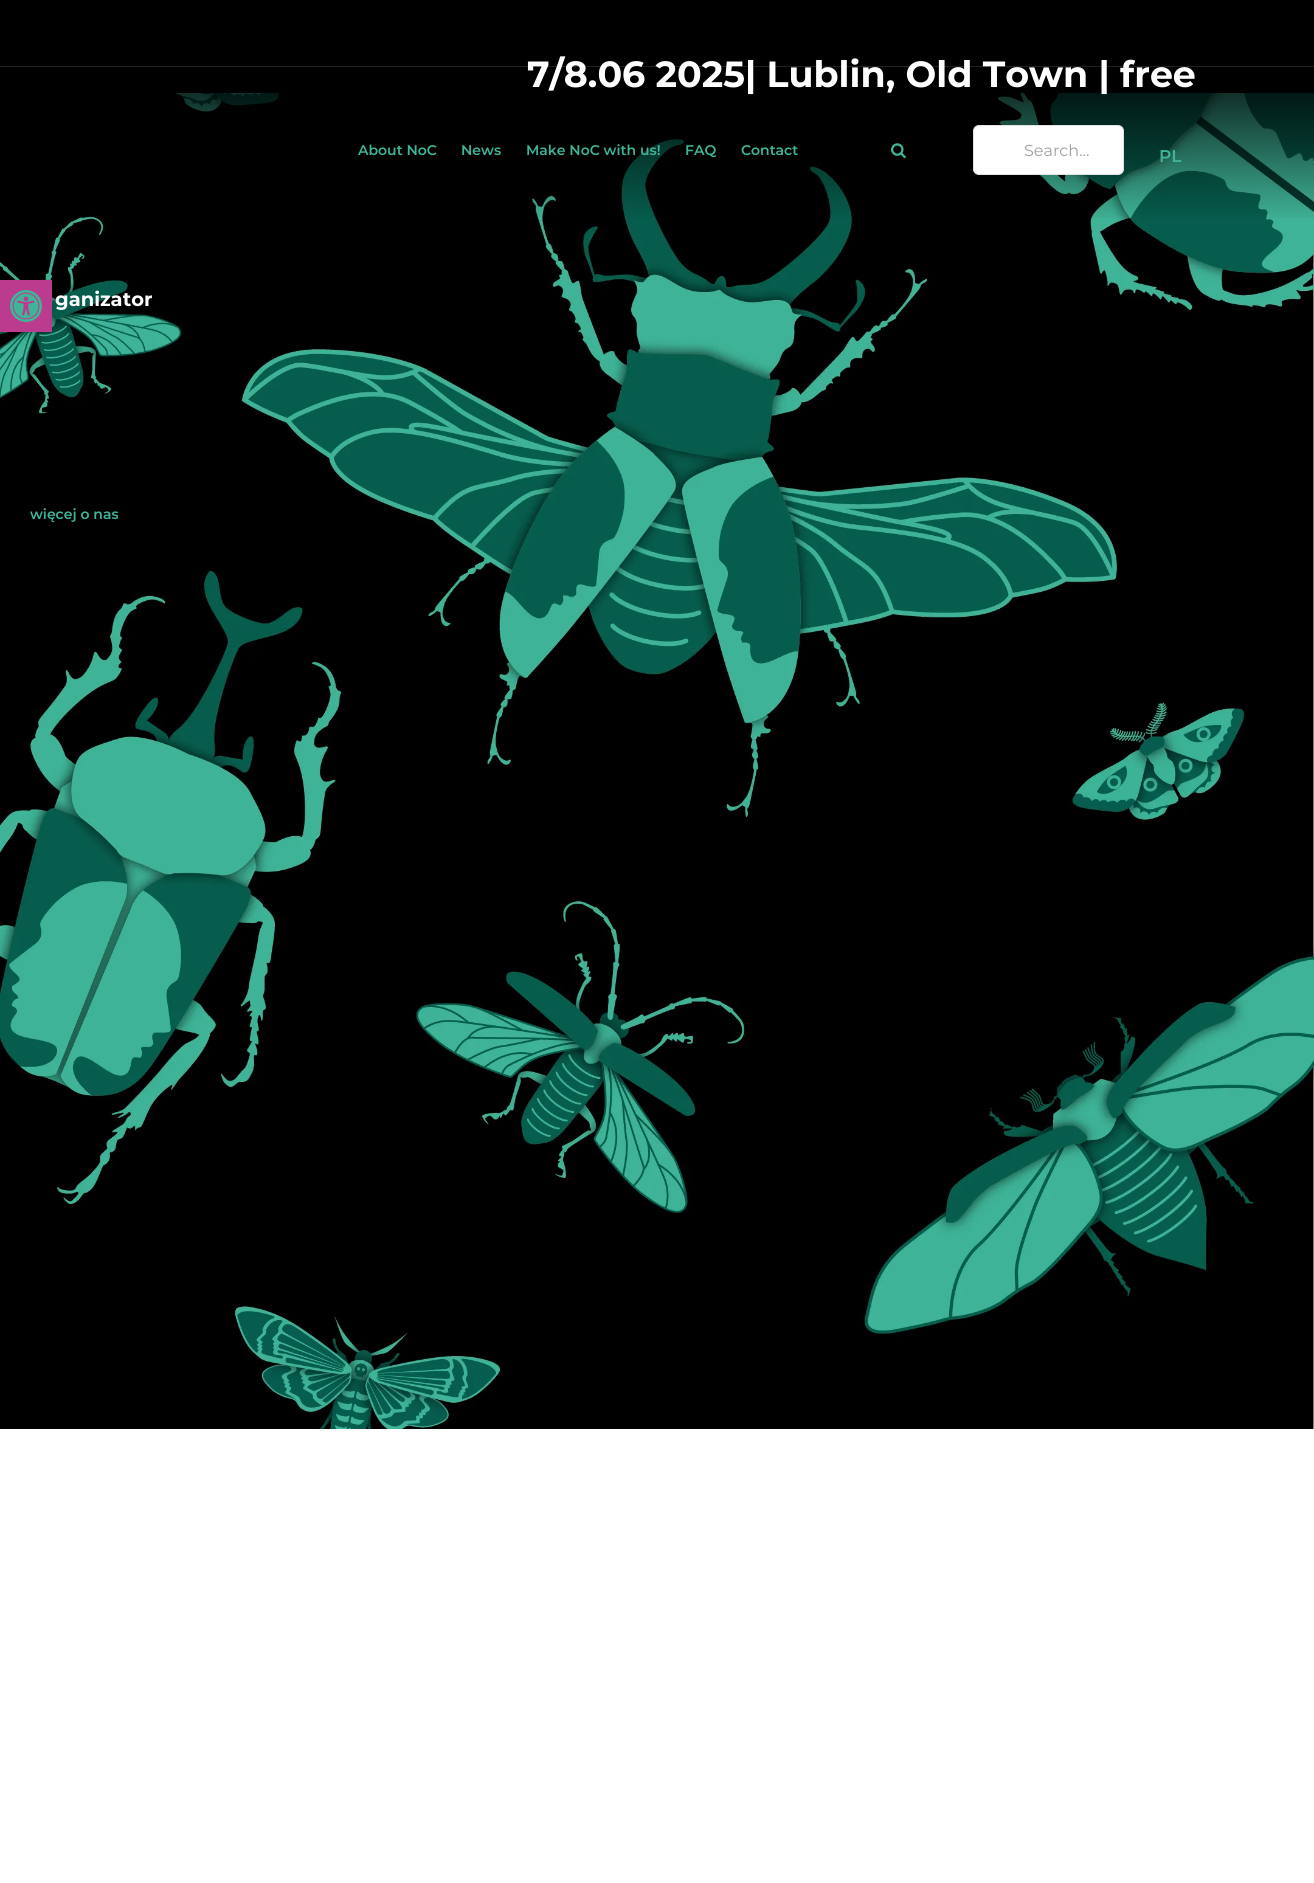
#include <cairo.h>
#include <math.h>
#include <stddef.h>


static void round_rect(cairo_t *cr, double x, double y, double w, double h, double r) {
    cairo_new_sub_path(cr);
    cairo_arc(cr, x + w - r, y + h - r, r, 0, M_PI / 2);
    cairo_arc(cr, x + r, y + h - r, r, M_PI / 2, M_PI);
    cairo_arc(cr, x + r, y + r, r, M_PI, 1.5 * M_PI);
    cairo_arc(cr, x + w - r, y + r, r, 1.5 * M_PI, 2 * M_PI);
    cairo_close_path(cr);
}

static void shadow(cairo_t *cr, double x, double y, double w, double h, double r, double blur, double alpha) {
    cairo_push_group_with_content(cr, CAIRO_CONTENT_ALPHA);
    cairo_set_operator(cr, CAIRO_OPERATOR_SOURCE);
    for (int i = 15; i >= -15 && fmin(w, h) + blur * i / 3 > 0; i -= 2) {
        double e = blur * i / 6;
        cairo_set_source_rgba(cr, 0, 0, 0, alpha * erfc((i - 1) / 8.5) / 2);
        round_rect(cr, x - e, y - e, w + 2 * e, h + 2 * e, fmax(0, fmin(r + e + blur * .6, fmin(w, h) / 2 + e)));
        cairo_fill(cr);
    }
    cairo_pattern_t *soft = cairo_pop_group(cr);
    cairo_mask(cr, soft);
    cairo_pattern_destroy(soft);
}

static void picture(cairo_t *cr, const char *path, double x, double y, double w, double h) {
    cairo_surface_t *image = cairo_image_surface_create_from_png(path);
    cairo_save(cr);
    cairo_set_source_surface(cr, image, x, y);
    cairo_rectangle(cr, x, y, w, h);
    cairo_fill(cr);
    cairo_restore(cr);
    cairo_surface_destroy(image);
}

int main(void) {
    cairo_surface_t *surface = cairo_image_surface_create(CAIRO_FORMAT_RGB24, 1314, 1883);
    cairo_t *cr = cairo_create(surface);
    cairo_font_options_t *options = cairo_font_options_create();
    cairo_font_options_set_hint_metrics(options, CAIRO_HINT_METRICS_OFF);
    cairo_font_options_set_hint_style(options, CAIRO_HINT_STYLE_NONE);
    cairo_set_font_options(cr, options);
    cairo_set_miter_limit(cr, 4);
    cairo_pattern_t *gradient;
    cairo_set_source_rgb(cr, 1, 1, 1);
    cairo_paint(cr);
    picture(cr, "img1.png", 0, 0, 1314, 1429);
    cairo_set_source_rgb(cr, 0, 0, 0);
    cairo_rectangle(cr, 110, 0, 1204, 93);
    cairo_fill(cr);
    cairo_set_source_rgb(cr, 1, 1, 1);
    cairo_rectangle(cr, 0, 66, 1314, 1);
    cairo_fill(cr);
    gradient = cairo_pattern_create_linear(657, 0, 657, 222);
    cairo_pattern_add_color_stop_rgba(gradient, 0.31, 0, 0, 0, 0.87);
    cairo_pattern_add_color_stop_rgba(gradient, 1, 0, 0, 0, 0);
    cairo_set_source(cr, gradient);
    cairo_pattern_destroy(gradient);
    cairo_rectangle(cr, 0, 1, 1314, 217);
    cairo_fill(cr);
    cairo_select_font_face(cr, "Montserrat", CAIRO_FONT_SLANT_NORMAL, CAIRO_FONT_WEIGHT_BOLD);
    cairo_set_font_size(cr, 36.4);
    cairo_set_source_rgb(cr, 1, 1, 1);
    cairo_move_to(cr, 527, 87);
    cairo_show_text(cr, "7/8.06 2025| Lublin, Old Town | free");
    cairo_select_font_face(cr, "Montserrat SemiBold", CAIRO_FONT_SLANT_NORMAL, CAIRO_FONT_WEIGHT_NORMAL);
    cairo_set_font_size(cr, 14);
    cairo_set_source_rgb(cr, 0.251, 0.706, 0.596);
    cairo_move_to(cr, 358, 155);
    cairo_show_text(cr, "About NoC");
    cairo_move_to(cr, 461, 155);
    cairo_show_text(cr, "News");
    cairo_move_to(cr, 526, 155);
    cairo_show_text(cr, "Make NoC with us!");
    cairo_move_to(cr, 685, 155);
    cairo_show_text(cr, "FAQ");
    cairo_move_to(cr, 741, 155);
    cairo_show_text(cr, "Contact");
    picture(cr, "img2.png", 891, 143, 15, 16);
    cairo_set_source_rgb(cr, 1, 1, 1);
    round_rect(cr, 973.5, 125.5, 150, 49, 5.5);
    cairo_fill_preserve(cr);
    cairo_set_source_rgb(cr, 0.886, 0.886, 0.886);
    cairo_set_line_width(cr, 1);
    cairo_stroke(cr);
    cairo_select_font_face(cr, "Montserrat", CAIRO_FONT_SLANT_NORMAL, CAIRO_FONT_WEIGHT_NORMAL);
    cairo_set_font_size(cr, 16);
    cairo_set_source_rgb(cr, 0.62, 0.627, 0.643);
    cairo_move_to(cr, 1024, 156);
    cairo_show_text(cr, "Search...");
    cairo_select_font_face(cr, "Montserrat SemiBold", CAIRO_FONT_SLANT_NORMAL, CAIRO_FONT_WEIGHT_NORMAL);
    cairo_set_font_size(cr, 17);
    cairo_set_source_rgb(cr, 0.251, 0.706, 0.596);
    cairo_move_to(cr, 1159, 162);
    cairo_show_text(cr, "PL");
    cairo_select_font_face(cr, "Montserrat", CAIRO_FONT_SLANT_NORMAL, CAIRO_FONT_WEIGHT_BOLD);
    cairo_set_font_size(cr, 19.5);
    cairo_set_source_rgb(cr, 1, 1, 1);
    cairo_move_to(cr, 55, 306);
    cairo_show_text(cr, "ganizator");
    cairo_select_font_face(cr, "Montserrat SemiBold", CAIRO_FONT_SLANT_NORMAL, CAIRO_FONT_WEIGHT_NORMAL);
    cairo_set_font_size(cr, 14);
    cairo_set_source_rgb(cr, 0.251, 0.706, 0.596);
    cairo_move_to(cr, 30, 519);
    cairo_show_text(cr, "więcej o nas");
    cairo_set_source_rgb(cr, 0, 0, 0);
    shadow(cr, 0, 280, 52, 52, 0, 5, 0.1);
    cairo_set_source_rgb(cr, 0.733, 0.235, 0.557);
    cairo_rectangle(cr, 0, 280, 52, 52);
    cairo_fill(cr);
    picture(cr, "img3.png", 10, 290, 32, 32);
    cairo_surface_write_to_png(surface, "page.png");
    cairo_font_options_destroy(options);
    cairo_destroy(cr);
    cairo_surface_destroy(surface);
    return 0;
}
